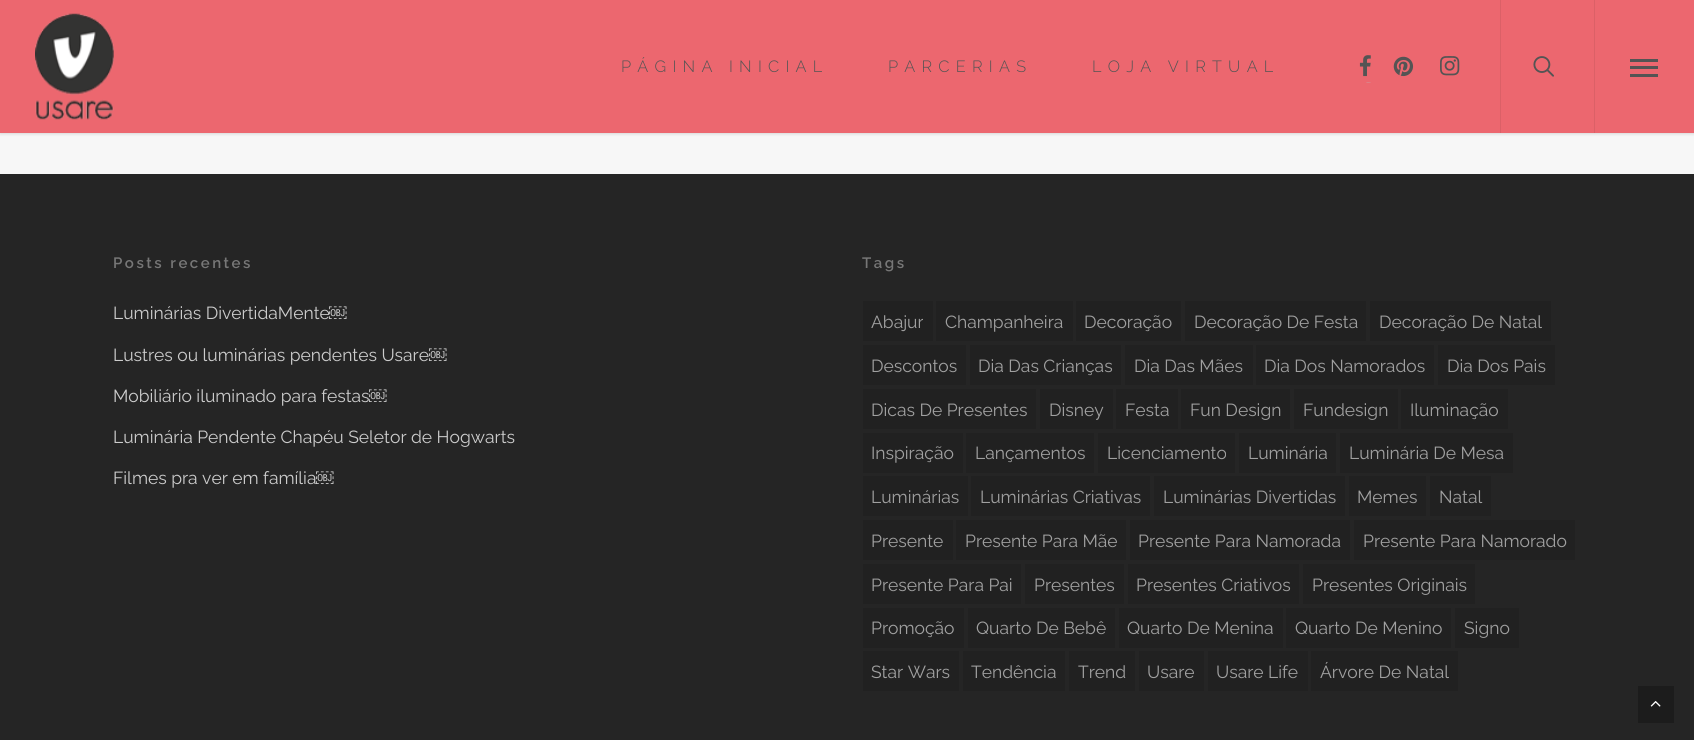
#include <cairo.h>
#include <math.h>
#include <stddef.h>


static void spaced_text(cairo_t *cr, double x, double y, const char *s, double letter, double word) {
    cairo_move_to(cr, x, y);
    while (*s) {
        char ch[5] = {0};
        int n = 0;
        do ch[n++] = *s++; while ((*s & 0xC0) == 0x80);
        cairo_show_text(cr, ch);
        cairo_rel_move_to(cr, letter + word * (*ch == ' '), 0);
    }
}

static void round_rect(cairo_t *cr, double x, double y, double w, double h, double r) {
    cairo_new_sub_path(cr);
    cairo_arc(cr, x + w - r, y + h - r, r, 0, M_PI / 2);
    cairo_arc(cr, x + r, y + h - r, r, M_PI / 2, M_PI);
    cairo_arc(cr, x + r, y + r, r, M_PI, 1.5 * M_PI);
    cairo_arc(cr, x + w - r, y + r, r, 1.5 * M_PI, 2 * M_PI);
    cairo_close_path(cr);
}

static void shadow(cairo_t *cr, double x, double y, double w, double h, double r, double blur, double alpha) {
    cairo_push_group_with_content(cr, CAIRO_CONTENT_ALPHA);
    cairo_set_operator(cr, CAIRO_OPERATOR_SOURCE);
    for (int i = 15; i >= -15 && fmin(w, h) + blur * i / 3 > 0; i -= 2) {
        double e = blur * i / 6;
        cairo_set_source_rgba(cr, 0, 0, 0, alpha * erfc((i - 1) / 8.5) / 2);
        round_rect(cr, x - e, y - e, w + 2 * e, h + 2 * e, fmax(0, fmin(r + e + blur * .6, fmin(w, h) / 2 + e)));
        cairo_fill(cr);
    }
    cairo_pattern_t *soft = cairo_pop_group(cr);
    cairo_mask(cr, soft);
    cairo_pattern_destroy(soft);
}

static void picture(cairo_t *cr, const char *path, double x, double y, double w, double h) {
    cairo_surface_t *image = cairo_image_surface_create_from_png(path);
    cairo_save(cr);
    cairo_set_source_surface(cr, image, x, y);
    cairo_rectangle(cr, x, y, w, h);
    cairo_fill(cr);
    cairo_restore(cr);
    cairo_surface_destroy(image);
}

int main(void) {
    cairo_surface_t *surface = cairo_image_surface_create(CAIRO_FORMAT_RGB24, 1694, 740);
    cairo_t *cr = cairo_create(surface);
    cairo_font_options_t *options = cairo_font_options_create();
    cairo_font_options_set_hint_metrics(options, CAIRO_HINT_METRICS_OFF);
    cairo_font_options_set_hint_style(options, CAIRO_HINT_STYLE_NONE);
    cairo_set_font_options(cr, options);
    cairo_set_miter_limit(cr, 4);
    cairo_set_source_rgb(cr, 0.965, 0.965, 0.965);
    cairo_paint(cr);
    cairo_set_source_rgb(cr, 0, 0, 0);
    shadow(cr, 0, 0, 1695, 133, 0, 2, 0.22);
    cairo_set_source_rgb(cr, 0.925, 0.404, 0.435);
    cairo_rectangle(cr, 0, 0, 1694, 133);
    cairo_fill(cr);
    picture(cr, "img1.png", 35, 13, 79, 107);
    cairo_select_font_face(cr, "Raleway Light", CAIRO_FONT_SLANT_NORMAL, CAIRO_FONT_WEIGHT_NORMAL);
    cairo_set_font_size(cr, 16.25);
    cairo_set_source_rgb(cr, 0.329, 0.329, 0.329);
    spaced_text(cr, 621, 72, "PÁGINA INICIAL", 6.25, 0);
    spaced_text(cr, 888, 72, "PARCERIAS", 6.25, 0);
    spaced_text(cr, 1092, 72, "LOJA VIRTUAL", 6.25, 0);
    picture(cr, "img2.png", 1359, 55, 12, 22);
    picture(cr, "img3.png", 1366, 82, 5, 1);
    picture(cr, "img4.png", 1393, 56, 21, 21);
    picture(cr, "img5.png", 1440, 56, 20, 20);
    cairo_set_source_rgb(cr, 0.859, 0.376, 0.404);
    cairo_rectangle(cr, 1500, 0, 1, 133);
    cairo_fill(cr);
    picture(cr, "img6.png", 1533, 56, 21, 21);
    cairo_rectangle(cr, 1594, 0, 1, 133);
    cairo_fill(cr);
    cairo_set_source_rgb(cr, 0.329, 0.329, 0.329);
    cairo_rectangle(cr, 1630, 59, 28, 3);
    cairo_fill(cr);
    cairo_rectangle(cr, 1630, 74, 28, 3);
    cairo_fill(cr);
    cairo_rectangle(cr, 1630, 66, 28, 3);
    cairo_fill(cr);
    cairo_set_source_rgb(cr, 0.145, 0.145, 0.145);
    cairo_rectangle(cr, 0, 174, 1694, 566);
    cairo_fill(cr);
    cairo_select_font_face(cr, "Raleway SemiBold", CAIRO_FONT_SLANT_NORMAL, CAIRO_FONT_WEIGHT_NORMAL);
    cairo_set_font_size(cr, 15);
    cairo_set_source_rgb(cr, 0.467, 0.467, 0.467);
    spaced_text(cr, 113, 268, "Posts recentes", 2.5, 0);
    cairo_select_font_face(cr, "Raleway", CAIRO_FONT_SLANT_NORMAL, CAIRO_FONT_WEIGHT_NORMAL);
    cairo_set_font_size(cr, 17.5);
    cairo_set_source_rgb(cr, 0.8, 0.8, 0.8);
    cairo_move_to(cr, 113, 319);
    cairo_show_text(cr, "Luminárias DivertidaMente");
    cairo_select_font_face(cr, "Liberation Serif", CAIRO_FONT_SLANT_NORMAL, CAIRO_FONT_WEIGHT_NORMAL);
    cairo_move_to(cr, 329, 319);
    cairo_show_text(cr, "￼");
    cairo_select_font_face(cr, "Raleway", CAIRO_FONT_SLANT_NORMAL, CAIRO_FONT_WEIGHT_NORMAL);
    cairo_move_to(cr, 113, 361);
    cairo_show_text(cr, "Lustres ou luminárias pendentes Usare");
    cairo_select_font_face(cr, "Liberation Serif", CAIRO_FONT_SLANT_NORMAL, CAIRO_FONT_WEIGHT_NORMAL);
    cairo_move_to(cr, 429, 361);
    cairo_show_text(cr, "￼");
    cairo_select_font_face(cr, "Raleway", CAIRO_FONT_SLANT_NORMAL, CAIRO_FONT_WEIGHT_NORMAL);
    cairo_move_to(cr, 113, 402);
    cairo_show_text(cr, "Mobiliário iluminado para festas");
    cairo_select_font_face(cr, "Liberation Serif", CAIRO_FONT_SLANT_NORMAL, CAIRO_FONT_WEIGHT_NORMAL);
    cairo_move_to(cr, 369, 402);
    cairo_show_text(cr, "￼");
    cairo_select_font_face(cr, "Raleway", CAIRO_FONT_SLANT_NORMAL, CAIRO_FONT_WEIGHT_NORMAL);
    cairo_move_to(cr, 113, 443);
    cairo_show_text(cr, "Luminária Pendente Chapéu Seletor de Hogwarts");
    cairo_move_to(cr, 113, 484);
    cairo_show_text(cr, "Filmes pra ver em família");
    cairo_select_font_face(cr, "Liberation Serif", CAIRO_FONT_SLANT_NORMAL, CAIRO_FONT_WEIGHT_NORMAL);
    cairo_move_to(cr, 316, 484);
    cairo_show_text(cr, "￼");
    cairo_select_font_face(cr, "Raleway SemiBold", CAIRO_FONT_SLANT_NORMAL, CAIRO_FONT_WEIGHT_NORMAL);
    cairo_set_font_size(cr, 15);
    cairo_set_source_rgb(cr, 0.467, 0.467, 0.467);
    spaced_text(cr, 862, 268, "Tags", 2.5, 0);
    cairo_set_source_rgb(cr, 0.129, 0.129, 0.129);
    cairo_rectangle(cr, 863, 301, 70, 40);
    cairo_fill(cr);
    cairo_select_font_face(cr, "Raleway", CAIRO_FONT_SLANT_NORMAL, CAIRO_FONT_WEIGHT_NORMAL);
    cairo_set_font_size(cr, 17.5);
    cairo_set_source_rgb(cr, 0.627, 0.627, 0.627);
    cairo_move_to(cr, 871, 328);
    cairo_show_text(cr, "Abajur");
    cairo_set_source_rgb(cr, 0.129, 0.129, 0.129);
    cairo_rectangle(cr, 936, 301, 137, 40);
    cairo_fill(cr);
    cairo_set_source_rgb(cr, 0.627, 0.627, 0.627);
    cairo_move_to(cr, 945, 328);
    cairo_show_text(cr, "Champanheira");
    cairo_set_source_rgb(cr, 0.129, 0.129, 0.129);
    cairo_rectangle(cr, 1076, 301, 105, 40);
    cairo_fill(cr);
    cairo_set_source_rgb(cr, 0.627, 0.627, 0.627);
    cairo_move_to(cr, 1084, 328);
    cairo_show_text(cr, "Decoração");
    cairo_set_source_rgb(cr, 0.129, 0.129, 0.129);
    cairo_rectangle(cr, 1185, 301, 181, 40);
    cairo_fill(cr);
    cairo_set_source_rgb(cr, 0.627, 0.627, 0.627);
    cairo_move_to(cr, 1194, 328);
    cairo_show_text(cr, "Decoração De Festa");
    cairo_set_source_rgb(cr, 0.129, 0.129, 0.129);
    cairo_rectangle(cr, 1370, 301, 181, 40);
    cairo_fill(cr);
    cairo_set_source_rgb(cr, 0.627, 0.627, 0.627);
    cairo_move_to(cr, 1379, 328);
    cairo_show_text(cr, "Decoração De Natal");
    cairo_set_source_rgb(cr, 0.129, 0.129, 0.129);
    cairo_rectangle(cr, 863, 345, 103, 40);
    cairo_fill(cr);
    cairo_set_source_rgb(cr, 0.627, 0.627, 0.627);
    cairo_move_to(cr, 871, 372);
    cairo_show_text(cr, "Descontos");
    cairo_set_source_rgb(cr, 0.129, 0.129, 0.129);
    cairo_rectangle(cr, 970, 345, 151, 40);
    cairo_fill(cr);
    cairo_set_source_rgb(cr, 0.627, 0.627, 0.627);
    cairo_move_to(cr, 978, 372);
    cairo_show_text(cr, "Dia Das Crianças");
    cairo_set_source_rgb(cr, 0.129, 0.129, 0.129);
    cairo_rectangle(cr, 1125, 345, 128, 40);
    cairo_fill(cr);
    cairo_set_source_rgb(cr, 0.627, 0.627, 0.627);
    cairo_move_to(cr, 1134, 372);
    cairo_show_text(cr, "Dia Das Mães");
    cairo_set_source_rgb(cr, 0.129, 0.129, 0.129);
    cairo_rectangle(cr, 1256, 345, 178, 40);
    cairo_fill(cr);
    cairo_set_source_rgb(cr, 0.627, 0.627, 0.627);
    cairo_move_to(cr, 1264, 372);
    cairo_show_text(cr, "Dia Dos Namorados");
    cairo_set_source_rgb(cr, 0.129, 0.129, 0.129);
    cairo_rectangle(cr, 1438, 345, 117, 40);
    cairo_fill(cr);
    cairo_set_source_rgb(cr, 0.627, 0.627, 0.627);
    cairo_move_to(cr, 1447, 372);
    cairo_show_text(cr, "Dia Dos Pais");
    cairo_set_source_rgb(cr, 0.129, 0.129, 0.129);
    cairo_rectangle(cr, 863, 389, 173, 40);
    cairo_fill(cr);
    cairo_set_source_rgb(cr, 0.627, 0.627, 0.627);
    cairo_move_to(cr, 871, 416);
    cairo_show_text(cr, "Dicas De Presentes");
    cairo_set_source_rgb(cr, 0.129, 0.129, 0.129);
    cairo_rectangle(cr, 1040, 389, 73, 40);
    cairo_fill(cr);
    cairo_set_source_rgb(cr, 0.627, 0.627, 0.627);
    cairo_move_to(cr, 1049, 416);
    cairo_show_text(cr, "Disney");
    cairo_set_source_rgb(cr, 0.129, 0.129, 0.129);
    cairo_rectangle(cr, 1116, 389, 62, 40);
    cairo_fill(cr);
    cairo_set_source_rgb(cr, 0.627, 0.627, 0.627);
    cairo_move_to(cr, 1125, 416);
    cairo_show_text(cr, "Festa");
    cairo_set_source_rgb(cr, 0.129, 0.129, 0.129);
    cairo_rectangle(cr, 1181, 389, 109, 40);
    cairo_fill(cr);
    cairo_set_source_rgb(cr, 0.627, 0.627, 0.627);
    cairo_move_to(cr, 1190, 416);
    cairo_show_text(cr, "Fun Design");
    cairo_set_source_rgb(cr, 0.129, 0.129, 0.129);
    cairo_rectangle(cr, 1294, 389, 104, 40);
    cairo_fill(cr);
    cairo_set_source_rgb(cr, 0.627, 0.627, 0.627);
    cairo_move_to(cr, 1303, 416);
    cairo_show_text(cr, "Fundesign");
    cairo_set_source_rgb(cr, 0.129, 0.129, 0.129);
    cairo_rectangle(cr, 1401, 389, 107, 40);
    cairo_fill(cr);
    cairo_set_source_rgb(cr, 0.627, 0.627, 0.627);
    cairo_move_to(cr, 1410, 416);
    cairo_show_text(cr, "Iluminação");
    cairo_set_source_rgb(cr, 0.129, 0.129, 0.129);
    cairo_rectangle(cr, 863, 433, 100, 40);
    cairo_fill(cr);
    cairo_set_source_rgb(cr, 0.627, 0.627, 0.627);
    cairo_move_to(cr, 871, 459);
    cairo_show_text(cr, "Inspiração");
    cairo_set_source_rgb(cr, 0.129, 0.129, 0.129);
    cairo_rectangle(cr, 966, 433, 128, 40);
    cairo_fill(cr);
    cairo_set_source_rgb(cr, 0.627, 0.627, 0.627);
    cairo_move_to(cr, 975, 459);
    cairo_show_text(cr, "Lançamentos");
    cairo_set_source_rgb(cr, 0.129, 0.129, 0.129);
    cairo_rectangle(cr, 1098, 433, 137, 40);
    cairo_fill(cr);
    cairo_set_source_rgb(cr, 0.627, 0.627, 0.627);
    cairo_move_to(cr, 1107, 459);
    cairo_show_text(cr, "Licenciamento");
    cairo_set_source_rgb(cr, 0.129, 0.129, 0.129);
    cairo_rectangle(cr, 1239, 433, 97, 40);
    cairo_fill(cr);
    cairo_set_source_rgb(cr, 0.627, 0.627, 0.627);
    cairo_move_to(cr, 1248, 459);
    cairo_show_text(cr, "Luminária");
    cairo_set_source_rgb(cr, 0.129, 0.129, 0.129);
    cairo_rectangle(cr, 1340, 433, 173, 40);
    cairo_fill(cr);
    cairo_set_source_rgb(cr, 0.627, 0.627, 0.627);
    cairo_move_to(cr, 1349, 459);
    cairo_show_text(cr, "Luminária De Mesa");
    cairo_set_source_rgb(cr, 0.129, 0.129, 0.129);
    cairo_rectangle(cr, 863, 476, 105, 40);
    cairo_fill(cr);
    cairo_set_source_rgb(cr, 0.627, 0.627, 0.627);
    cairo_move_to(cr, 871, 503);
    cairo_show_text(cr, "Luminárias");
    cairo_set_source_rgb(cr, 0.129, 0.129, 0.129);
    cairo_rectangle(cr, 971, 476, 179, 40);
    cairo_fill(cr);
    cairo_set_source_rgb(cr, 0.627, 0.627, 0.627);
    cairo_move_to(cr, 980, 503);
    cairo_show_text(cr, "Luminárias Criativas");
    cairo_set_source_rgb(cr, 0.129, 0.129, 0.129);
    cairo_rectangle(cr, 1154, 476, 191, 40);
    cairo_fill(cr);
    cairo_set_source_rgb(cr, 0.627, 0.627, 0.627);
    cairo_move_to(cr, 1163, 503);
    cairo_show_text(cr, "Luminárias Divertidas");
    cairo_set_source_rgb(cr, 0.129, 0.129, 0.129);
    cairo_rectangle(cr, 1349, 476, 77, 40);
    cairo_fill(cr);
    cairo_set_source_rgb(cr, 0.627, 0.627, 0.627);
    cairo_move_to(cr, 1357, 503);
    cairo_show_text(cr, "Memes");
    cairo_set_source_rgb(cr, 0.129, 0.129, 0.129);
    cairo_rectangle(cr, 1430, 476, 61, 40);
    cairo_fill(cr);
    cairo_set_source_rgb(cr, 0.627, 0.627, 0.627);
    cairo_move_to(cr, 1439, 503);
    cairo_show_text(cr, "Natal");
    cairo_set_source_rgb(cr, 0.129, 0.129, 0.129);
    cairo_rectangle(cr, 863, 520, 90, 40);
    cairo_fill(cr);
    cairo_set_source_rgb(cr, 0.627, 0.627, 0.627);
    cairo_move_to(cr, 871, 547);
    cairo_show_text(cr, "Presente");
    cairo_set_source_rgb(cr, 0.129, 0.129, 0.129);
    cairo_rectangle(cr, 956, 520, 170, 40);
    cairo_fill(cr);
    cairo_set_source_rgb(cr, 0.627, 0.627, 0.627);
    cairo_move_to(cr, 965, 547);
    cairo_show_text(cr, "Presente Para Mãe");
    cairo_set_source_rgb(cr, 0.129, 0.129, 0.129);
    cairo_rectangle(cr, 1130, 520, 220, 40);
    cairo_fill(cr);
    cairo_set_source_rgb(cr, 0.627, 0.627, 0.627);
    cairo_move_to(cr, 1138, 547);
    cairo_show_text(cr, "Presente Para Namorada");
    cairo_set_source_rgb(cr, 0.129, 0.129, 0.129);
    cairo_rectangle(cr, 1354, 520, 221, 40);
    cairo_fill(cr);
    cairo_set_source_rgb(cr, 0.627, 0.627, 0.627);
    cairo_move_to(cr, 1363, 547);
    cairo_show_text(cr, "Presente Para Namorado");
    cairo_set_source_rgb(cr, 0.129, 0.129, 0.129);
    cairo_rectangle(cr, 863, 564, 158, 40);
    cairo_fill(cr);
    cairo_set_source_rgb(cr, 0.627, 0.627, 0.627);
    cairo_move_to(cr, 871, 591);
    cairo_show_text(cr, "Presente Para Pai");
    cairo_set_source_rgb(cr, 0.129, 0.129, 0.129);
    cairo_rectangle(cr, 1025, 564, 99, 40);
    cairo_fill(cr);
    cairo_set_source_rgb(cr, 0.627, 0.627, 0.627);
    cairo_move_to(cr, 1034, 591);
    cairo_show_text(cr, "Presentes");
    cairo_set_source_rgb(cr, 0.129, 0.129, 0.129);
    cairo_rectangle(cr, 1128, 564, 171, 40);
    cairo_fill(cr);
    cairo_set_source_rgb(cr, 0.627, 0.627, 0.627);
    cairo_move_to(cr, 1136, 591);
    cairo_show_text(cr, "Presentes Criativos");
    cairo_set_source_rgb(cr, 0.129, 0.129, 0.129);
    cairo_rectangle(cr, 1303, 564, 172, 40);
    cairo_fill(cr);
    cairo_set_source_rgb(cr, 0.627, 0.627, 0.627);
    cairo_move_to(cr, 1312, 591);
    cairo_show_text(cr, "Presentes Originais");
    cairo_set_source_rgb(cr, 0.129, 0.129, 0.129);
    cairo_rectangle(cr, 863, 608, 101, 40);
    cairo_fill(cr);
    cairo_set_source_rgb(cr, 0.627, 0.627, 0.627);
    cairo_move_to(cr, 871, 634);
    cairo_show_text(cr, "Promoção");
    cairo_set_source_rgb(cr, 0.129, 0.129, 0.129);
    cairo_rectangle(cr, 968, 608, 147, 40);
    cairo_fill(cr);
    cairo_set_source_rgb(cr, 0.627, 0.627, 0.627);
    cairo_move_to(cr, 976, 634);
    cairo_show_text(cr, "Quarto De Bebê");
    cairo_set_source_rgb(cr, 0.129, 0.129, 0.129);
    cairo_rectangle(cr, 1119, 608, 164, 40);
    cairo_fill(cr);
    cairo_set_source_rgb(cr, 0.627, 0.627, 0.627);
    cairo_move_to(cr, 1127, 634);
    cairo_show_text(cr, "Quarto De Menina");
    cairo_set_source_rgb(cr, 0.129, 0.129, 0.129);
    cairo_rectangle(cr, 1286, 608, 165, 40);
    cairo_fill(cr);
    cairo_set_source_rgb(cr, 0.627, 0.627, 0.627);
    cairo_move_to(cr, 1295, 634);
    cairo_show_text(cr, "Quarto De Menino");
    cairo_set_source_rgb(cr, 0.129, 0.129, 0.129);
    cairo_rectangle(cr, 1455, 608, 64, 40);
    cairo_fill(cr);
    cairo_set_source_rgb(cr, 0.627, 0.627, 0.627);
    cairo_move_to(cr, 1464, 634);
    cairo_show_text(cr, "Signo");
    cairo_set_source_rgb(cr, 0.129, 0.129, 0.129);
    cairo_rectangle(cr, 863, 651, 96, 40);
    cairo_fill(cr);
    cairo_set_source_rgb(cr, 0.627, 0.627, 0.627);
    cairo_move_to(cr, 871, 678);
    cairo_show_text(cr, "Star Wars");
    cairo_set_source_rgb(cr, 0.129, 0.129, 0.129);
    cairo_rectangle(cr, 963, 651, 102, 40);
    cairo_fill(cr);
    cairo_set_source_rgb(cr, 0.627, 0.627, 0.627);
    cairo_move_to(cr, 971, 678);
    cairo_show_text(cr, "Tendência");
    cairo_set_source_rgb(cr, 0.129, 0.129, 0.129);
    cairo_rectangle(cr, 1069, 651, 66, 40);
    cairo_fill(cr);
    cairo_set_source_rgb(cr, 0.627, 0.627, 0.627);
    cairo_move_to(cr, 1078, 678);
    cairo_show_text(cr, "Trend");
    cairo_set_source_rgb(cr, 0.129, 0.129, 0.129);
    cairo_rectangle(cr, 1139, 651, 65, 40);
    cairo_fill(cr);
    cairo_set_source_rgb(cr, 0.627, 0.627, 0.627);
    cairo_move_to(cr, 1147, 678);
    cairo_show_text(cr, "Usare");
    cairo_set_source_rgb(cr, 0.129, 0.129, 0.129);
    cairo_rectangle(cr, 1208, 651, 100, 40);
    cairo_fill(cr);
    cairo_set_source_rgb(cr, 0.627, 0.627, 0.627);
    cairo_move_to(cr, 1216, 678);
    cairo_show_text(cr, "Usare Life");
    cairo_set_source_rgb(cr, 0.129, 0.129, 0.129);
    cairo_rectangle(cr, 1311, 651, 147, 40);
    cairo_fill(cr);
    cairo_set_source_rgb(cr, 0.627, 0.627, 0.627);
    cairo_move_to(cr, 1320, 678);
    cairo_show_text(cr, "Árvore De Natal");
    cairo_set_source_rgb(cr, 0.11, 0.11, 0.11);
    cairo_rectangle(cr, 1638, 686, 36, 37);
    cairo_fill(cr);
    picture(cr, "img7.png", 1650, 701, 11, 6);
    cairo_surface_write_to_png(surface, "page.png");
    cairo_font_options_destroy(options);
    cairo_destroy(cr);
    cairo_surface_destroy(surface);
    return 0;
}
